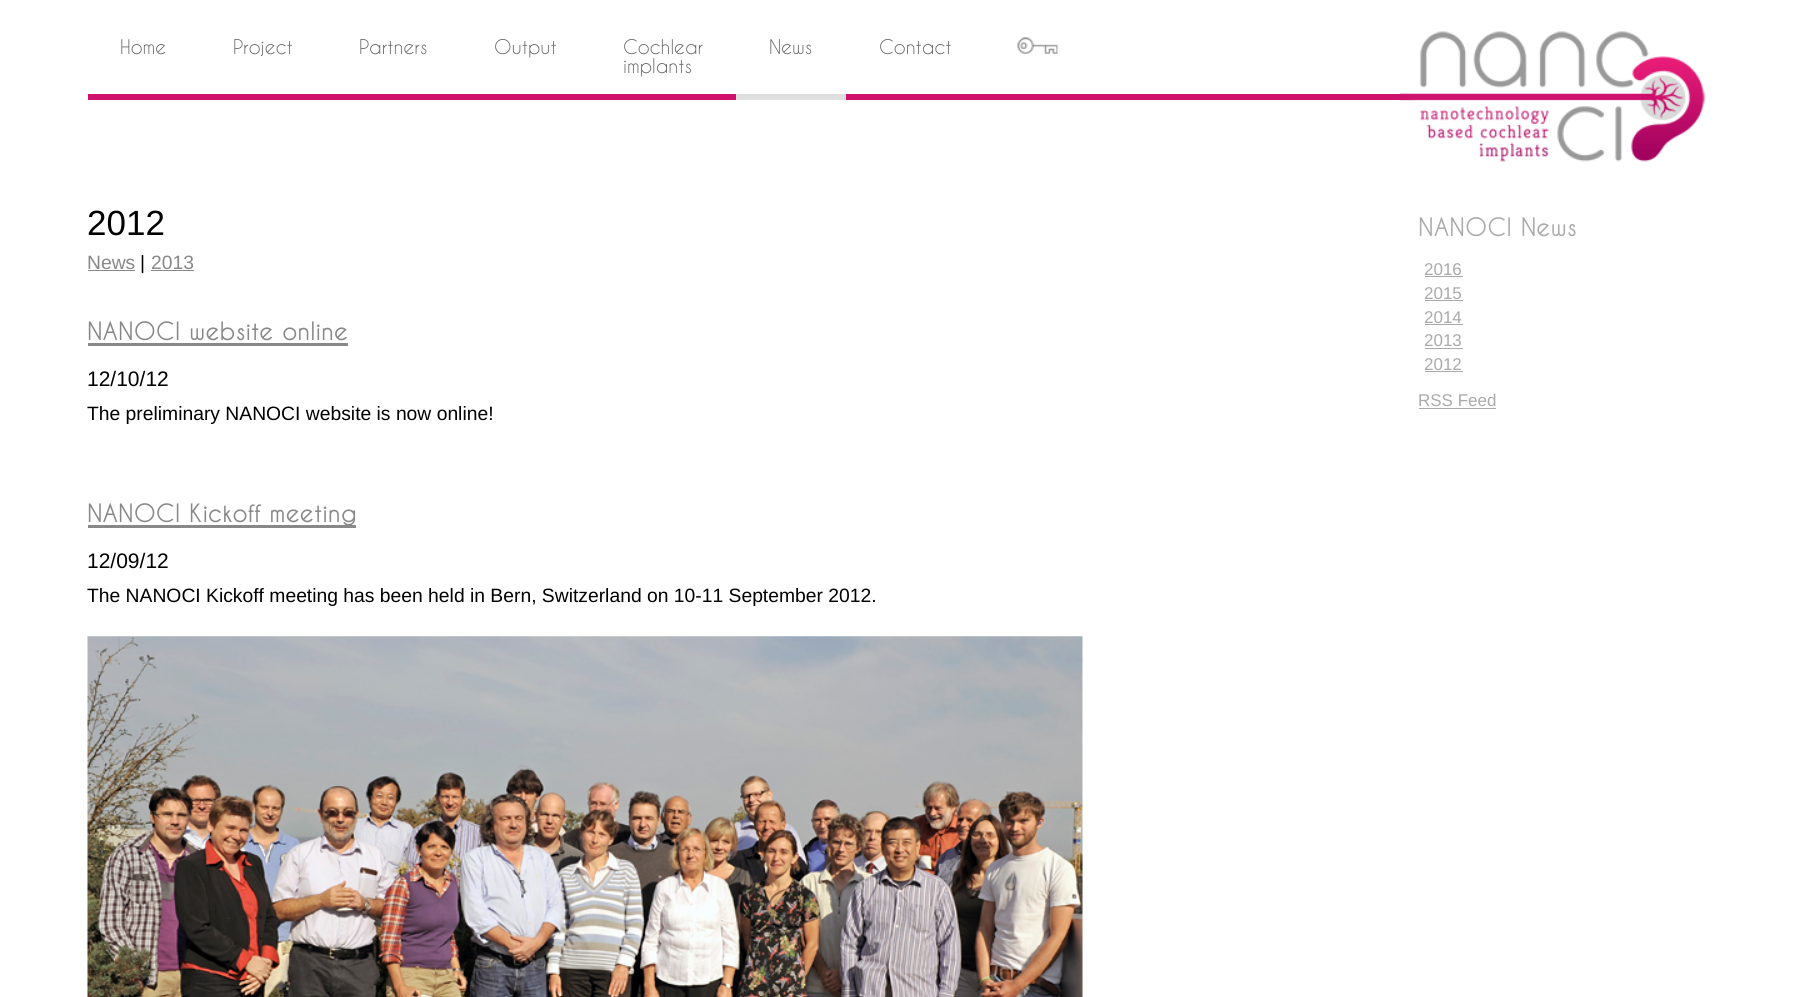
#include <cairo.h>
#include <math.h>
#include <stddef.h>


static void picture(cairo_t *cr, const char *path, double x, double y, double w, double h) {
    cairo_surface_t *image = cairo_image_surface_create_from_png(path);
    cairo_save(cr);
    cairo_set_source_surface(cr, image, x, y);
    cairo_rectangle(cr, x, y, w, h);
    cairo_fill(cr);
    cairo_restore(cr);
    cairo_surface_destroy(image);
}

int main(void) {
    cairo_surface_t *surface = cairo_image_surface_create(CAIRO_FORMAT_RGB24, 1798, 997);
    cairo_t *cr = cairo_create(surface);
    cairo_font_options_t *options = cairo_font_options_create();
    cairo_font_options_set_hint_metrics(options, CAIRO_HINT_METRICS_OFF);
    cairo_font_options_set_hint_style(options, CAIRO_HINT_STYLE_NONE);
    cairo_set_font_options(cr, options);
    cairo_set_miter_limit(cr, 4);
    cairo_set_source_rgb(cr, 1, 1, 1);
    cairo_paint(cr);
    picture(cr, "img2.png", 1400, 31, 306, 131);
    cairo_set_source_rgb(cr, 0.808, 0.071, 0.431);
    cairo_rectangle(cr, 88, 94, 1325, 6);
    cairo_fill(cr);
    cairo_select_font_face(cr, "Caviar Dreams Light", CAIRO_FONT_SLANT_NORMAL, CAIRO_FONT_WEIGHT_NORMAL);
    cairo_set_font_size(cr, 19);
    cairo_set_source_rgb(cr, 0.4, 0.4, 0.4);
    cairo_move_to(cr, 120, 54);
    cairo_show_text(cr, "Home");
    cairo_move_to(cr, 233, 54);
    cairo_show_text(cr, "Project");
    cairo_move_to(cr, 359, 54);
    cairo_show_text(cr, "Partners");
    cairo_move_to(cr, 494, 54);
    cairo_show_text(cr, "Output");
    cairo_move_to(cr, 623, 54);
    cairo_show_text(cr, "Cochlear");
    cairo_move_to(cr, 623, 73);
    cairo_show_text(cr, "implants");
    cairo_set_source_rgb(cr, 0.875, 0.875, 0.875);
    cairo_rectangle(cr, 736, 94, 110, 6);
    cairo_fill(cr);
    cairo_set_source_rgb(cr, 0.4, 0.4, 0.4);
    cairo_move_to(cr, 769, 54);
    cairo_show_text(cr, "News");
    cairo_move_to(cr, 879, 54);
    cairo_show_text(cr, "Contact");
    picture(cr, "img1.png", 1017, 37, 41, 17);
    cairo_select_font_face(cr, "Liberation Sans", CAIRO_FONT_SLANT_NORMAL, CAIRO_FONT_WEIGHT_NORMAL);
    cairo_set_font_size(cr, 35);
    cairo_set_source_rgb(cr, 0, 0, 0);
    cairo_move_to(cr, 87, 235);
    cairo_show_text(cr, "2012");
    cairo_set_font_size(cr, 19.3);
    cairo_set_source_rgb(cr, 0.533, 0.533, 0.533);
    cairo_move_to(cr, 87, 269);
    cairo_show_text(cr, "News");
    cairo_rectangle(cr, 88, 270, 47, 1);
    cairo_fill(cr);
    cairo_set_source_rgb(cr, 0, 0, 0);
    cairo_move_to(cr, 140, 269);
    cairo_show_text(cr, "|");
    cairo_set_source_rgb(cr, 0.533, 0.533, 0.533);
    cairo_move_to(cr, 151, 269);
    cairo_show_text(cr, "2013");
    cairo_rectangle(cr, 151, 270, 43, 1);
    cairo_fill(cr);
    cairo_select_font_face(cr, "Caviar Dreams", CAIRO_FONT_SLANT_NORMAL, CAIRO_FONT_WEIGHT_BOLD);
    cairo_set_font_size(cr, 25.1);
    cairo_move_to(cr, 87, 340);
    cairo_show_text(cr, "NANOCI website online");
    cairo_rectangle(cr, 88, 343, 260, 3);
    cairo_fill(cr);
    cairo_select_font_face(cr, "Liberation Sans", CAIRO_FONT_SLANT_NORMAL, CAIRO_FONT_WEIGHT_NORMAL);
    cairo_set_font_size(cr, 21);
    cairo_set_source_rgb(cr, 0, 0, 0);
    cairo_move_to(cr, 87, 386);
    cairo_show_text(cr, "12/10/12");
    cairo_set_font_size(cr, 19.3);
    cairo_move_to(cr, 87, 420);
    cairo_show_text(cr, "The preliminary NANOCI website is now online!");
    cairo_set_source_rgb(cr, 0.533, 0.533, 0.533);
    cairo_rectangle(cr, 88, 525, 268, 3);
    cairo_fill(cr);
    cairo_select_font_face(cr, "Caviar Dreams", CAIRO_FONT_SLANT_NORMAL, CAIRO_FONT_WEIGHT_BOLD);
    cairo_set_font_size(cr, 25.1);
    cairo_move_to(cr, 87, 522);
    cairo_show_text(cr, "NANOCI Kickoff meeting");
    cairo_select_font_face(cr, "Liberation Sans", CAIRO_FONT_SLANT_NORMAL, CAIRO_FONT_WEIGHT_NORMAL);
    cairo_set_font_size(cr, 21);
    cairo_set_source_rgb(cr, 0, 0, 0);
    cairo_move_to(cr, 87, 568);
    cairo_show_text(cr, "12/09/12");
    cairo_set_font_size(cr, 19.3);
    cairo_move_to(cr, 87, 602);
    cairo_show_text(cr, "The NANOCI Kickoff meeting has been held in Bern, Switzerland on 10-11 September 2012.");
    picture(cr, "img3.png", 87, 636, 996, 361);
    cairo_select_font_face(cr, "Caviar Dreams", CAIRO_FONT_SLANT_NORMAL, CAIRO_FONT_WEIGHT_BOLD);
    cairo_set_font_size(cr, 25.25);
    cairo_set_source_rgb(cr, 0.667, 0.667, 0.667);
    cairo_move_to(cr, 1418, 236);
    cairo_show_text(cr, "NANOCI News");
    cairo_select_font_face(cr, "Liberation Sans", CAIRO_FONT_SLANT_NORMAL, CAIRO_FONT_WEIGHT_NORMAL);
    cairo_set_font_size(cr, 17);
    cairo_move_to(cr, 1424, 275);
    cairo_show_text(cr, "2016");
    cairo_rectangle(cr, 1425, 276, 38, 1);
    cairo_fill(cr);
    cairo_move_to(cr, 1424, 299);
    cairo_show_text(cr, "2015");
    cairo_rectangle(cr, 1425, 300, 38, 1);
    cairo_fill(cr);
    cairo_move_to(cr, 1424, 323);
    cairo_show_text(cr, "2014");
    cairo_rectangle(cr, 1425, 324, 38, 1);
    cairo_fill(cr);
    cairo_move_to(cr, 1424, 346);
    cairo_show_text(cr, "2013");
    cairo_rectangle(cr, 1425, 348, 38, 1);
    cairo_fill(cr);
    cairo_move_to(cr, 1424, 370);
    cairo_show_text(cr, "2012");
    cairo_rectangle(cr, 1425, 371, 38, 1);
    cairo_fill(cr);
    cairo_move_to(cr, 1418, 406);
    cairo_show_text(cr, "RSS Feed");
    cairo_rectangle(cr, 1419, 408, 77, 1);
    cairo_fill(cr);
    cairo_surface_write_to_png(surface, "page.png");
    cairo_font_options_destroy(options);
    cairo_destroy(cr);
    cairo_surface_destroy(surface);
    return 0;
}
